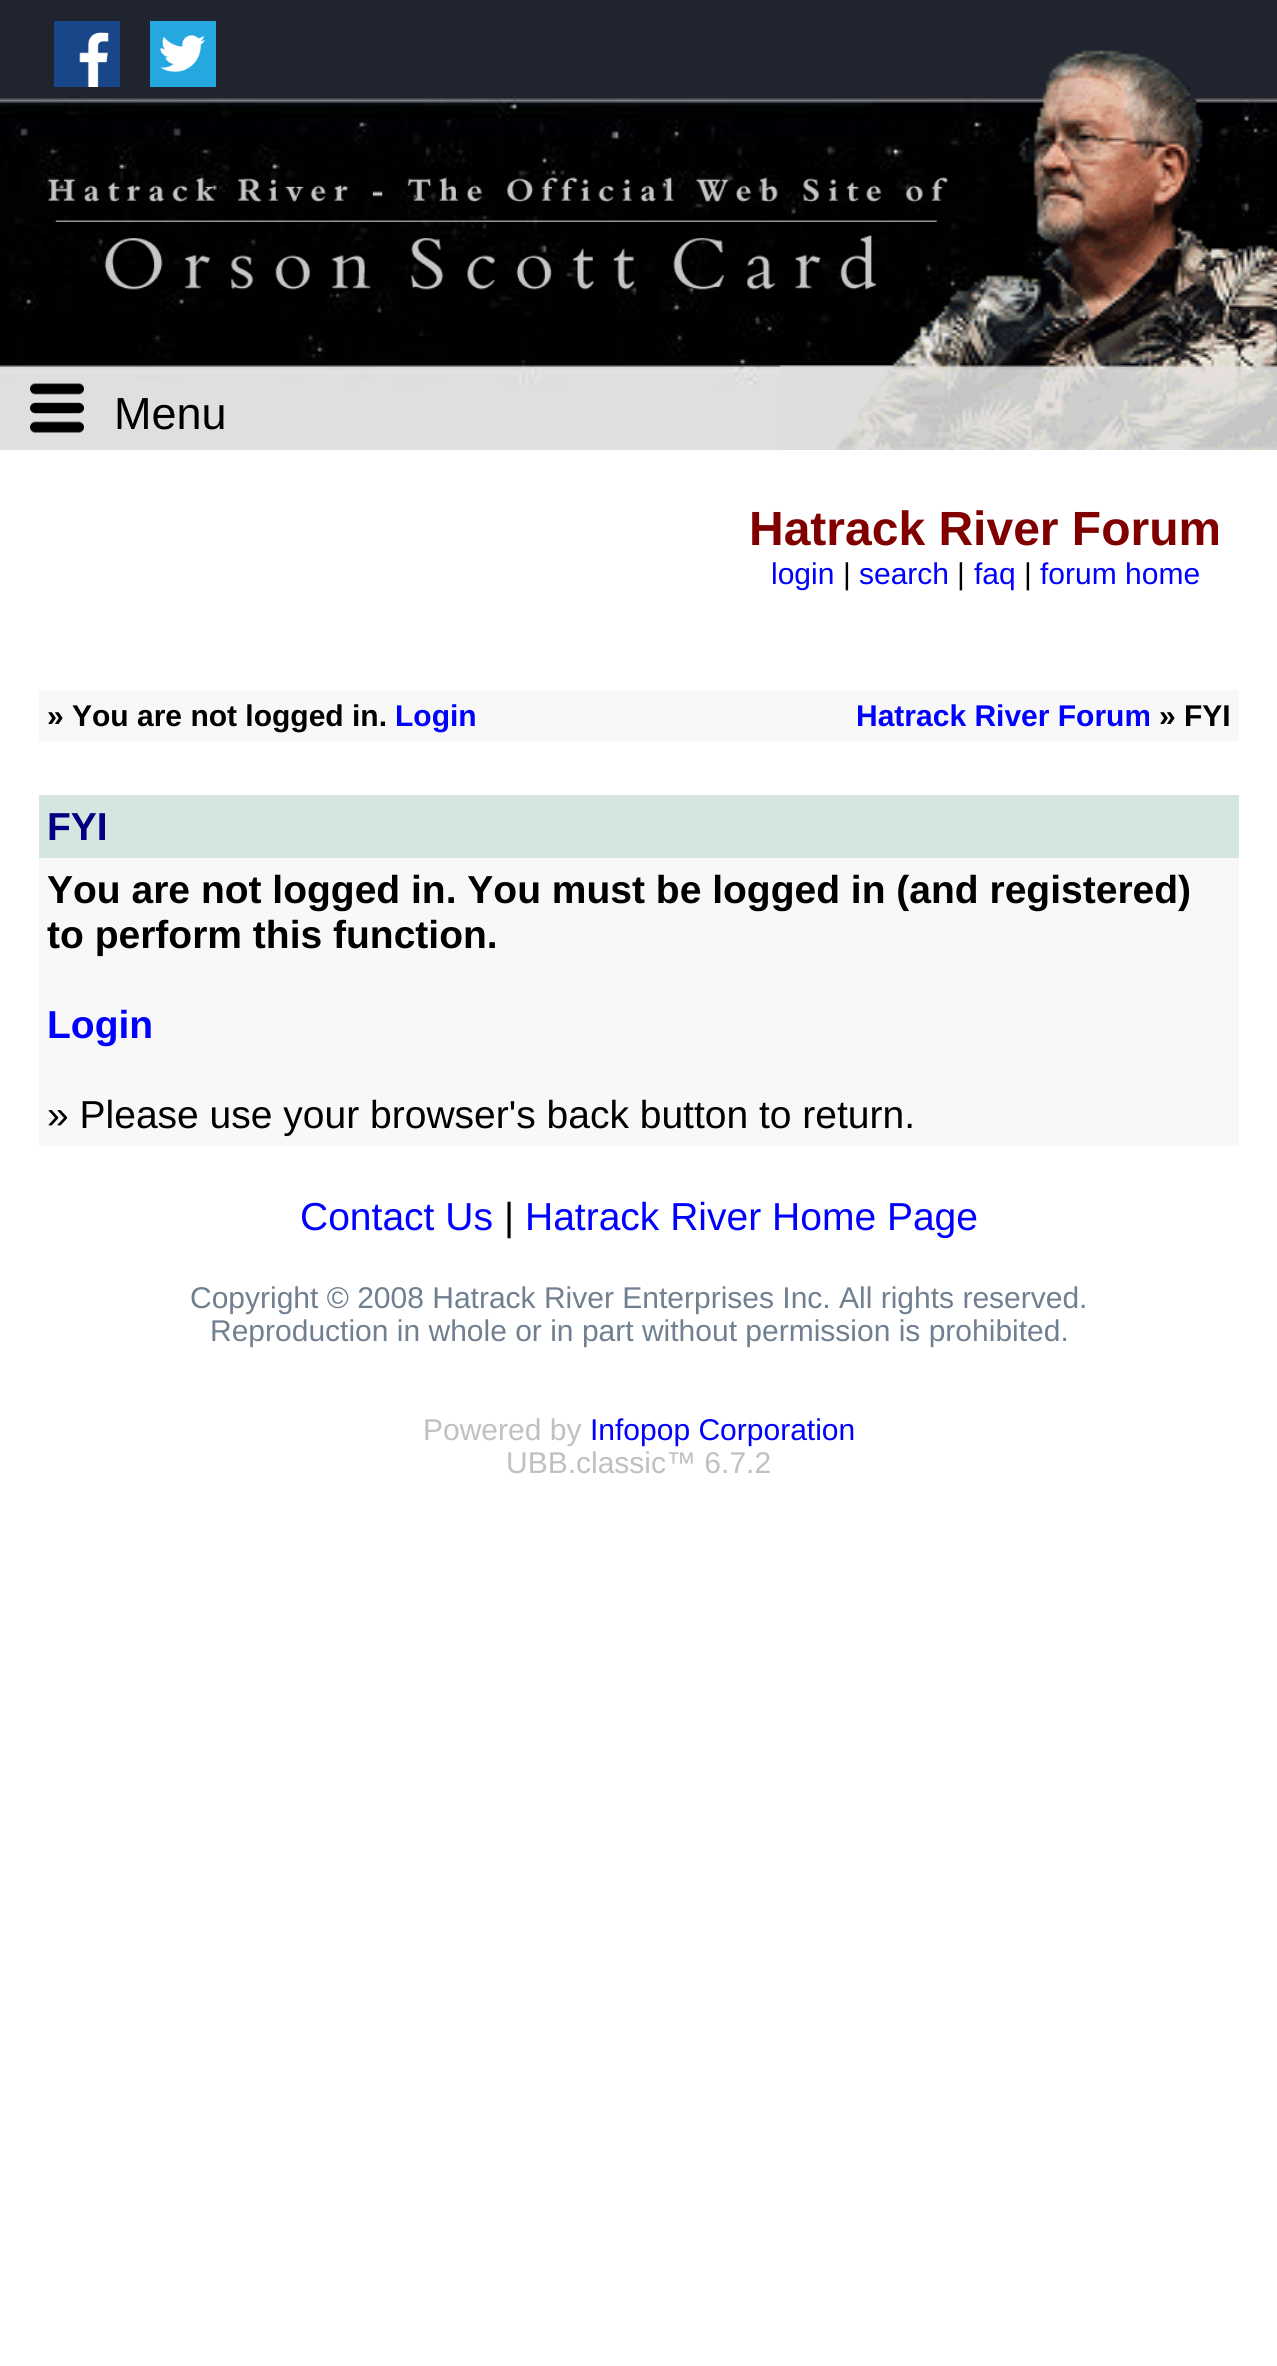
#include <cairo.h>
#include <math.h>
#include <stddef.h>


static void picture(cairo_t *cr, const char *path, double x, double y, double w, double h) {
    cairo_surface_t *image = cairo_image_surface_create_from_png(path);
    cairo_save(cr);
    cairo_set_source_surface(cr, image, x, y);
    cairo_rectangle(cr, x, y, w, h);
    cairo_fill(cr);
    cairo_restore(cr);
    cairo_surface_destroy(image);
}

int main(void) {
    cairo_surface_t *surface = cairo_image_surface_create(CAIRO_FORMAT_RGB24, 1277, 2366);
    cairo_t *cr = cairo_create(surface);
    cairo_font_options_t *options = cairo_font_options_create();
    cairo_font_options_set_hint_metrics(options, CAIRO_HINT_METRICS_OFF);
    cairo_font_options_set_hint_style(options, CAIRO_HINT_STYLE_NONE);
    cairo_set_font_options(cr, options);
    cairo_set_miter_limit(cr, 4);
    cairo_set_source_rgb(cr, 1, 1, 1);
    cairo_paint(cr);
    picture(cr, "img1.png", 0, 0, 1277, 450);
    picture(cr, "img2.png", 54, 21, 66, 66);
    picture(cr, "img3.png", 150, 21, 66, 66);
    picture(cr, "img5.png", 780, 50, 497, 400);
    picture(cr, "img4.png", 47, 177, 901, 113);
    picture(cr, "img6.png", 30, 383, 54, 50);
    cairo_select_font_face(cr, "Liberation Sans", CAIRO_FONT_SLANT_NORMAL, CAIRO_FONT_WEIGHT_NORMAL);
    cairo_set_font_size(cr, 45);
    cairo_set_source_rgb(cr, 0, 0, 0);
    cairo_move_to(cr, 114, 429);
    cairo_show_text(cr, "Menu");
    cairo_select_font_face(cr, "Liberation Sans", CAIRO_FONT_SLANT_NORMAL, CAIRO_FONT_WEIGHT_BOLD);
    cairo_set_font_size(cr, 48);
    cairo_set_source_rgb(cr, 0.502, 0, 0);
    cairo_move_to(cr, 749, 545);
    cairo_show_text(cr, "Hatrack River Forum");
    cairo_select_font_face(cr, "Liberation Sans", CAIRO_FONT_SLANT_NORMAL, CAIRO_FONT_WEIGHT_NORMAL);
    cairo_set_font_size(cr, 30);
    cairo_set_source_rgb(cr, 0, 0, 1);
    cairo_move_to(cr, 771, 584);
    cairo_show_text(cr, "login");
    cairo_set_source_rgb(cr, 0, 0, 0);
    cairo_move_to(cr, 843, 584);
    cairo_show_text(cr, "|");
    cairo_set_source_rgb(cr, 0, 0, 1);
    cairo_move_to(cr, 859, 584);
    cairo_show_text(cr, "search");
    cairo_set_source_rgb(cr, 0, 0, 0);
    cairo_move_to(cr, 957, 584);
    cairo_show_text(cr, "|");
    cairo_set_source_rgb(cr, 0, 0, 1);
    cairo_move_to(cr, 974, 584);
    cairo_show_text(cr, "faq");
    cairo_set_source_rgb(cr, 0, 0, 0);
    cairo_move_to(cr, 1024, 584);
    cairo_show_text(cr, "|");
    cairo_set_source_rgb(cr, 0, 0, 1);
    cairo_move_to(cr, 1040, 584);
    cairo_show_text(cr, "forum home");
    cairo_set_source_rgb(cr, 0.969, 0.969, 0.969);
    cairo_rectangle(cr, 39, 690, 1200, 51);
    cairo_fill(cr);
    cairo_select_font_face(cr, "Liberation Sans", CAIRO_FONT_SLANT_NORMAL, CAIRO_FONT_WEIGHT_BOLD);
    cairo_set_source_rgb(cr, 0, 0, 0);
    cairo_move_to(cr, 47, 726);
    cairo_show_text(cr, "» You are not logged in.");
    cairo_set_source_rgb(cr, 0, 0, 1);
    cairo_move_to(cr, 395, 726);
    cairo_show_text(cr, "Login");
    cairo_move_to(cr, 856, 726);
    cairo_show_text(cr, "Hatrack River Forum");
    cairo_set_source_rgb(cr, 0, 0, 0);
    cairo_move_to(cr, 1159, 726);
    cairo_show_text(cr, "» FYI");
    cairo_set_source_rgb(cr, 0.835, 0.902, 0.882);
    cairo_rectangle(cr, 39, 795, 1200, 63);
    cairo_fill(cr);
    cairo_set_font_size(cr, 39);
    cairo_set_source_rgb(cr, 0, 0, 0.502);
    cairo_move_to(cr, 47, 840);
    cairo_show_text(cr, "FYI");
    cairo_set_source_rgb(cr, 0.969, 0.969, 0.969);
    cairo_rectangle(cr, 39, 858, 1200, 288);
    cairo_fill(cr);
    cairo_set_source_rgb(cr, 0, 0, 0);
    cairo_move_to(cr, 47, 903);
    cairo_show_text(cr, "You are not logged in. You must be logged in (and registered)");
    cairo_move_to(cr, 47, 948);
    cairo_show_text(cr, "to perform this function.");
    cairo_set_source_rgb(cr, 0, 0, 1);
    cairo_move_to(cr, 47, 1038);
    cairo_show_text(cr, "Login");
    cairo_select_font_face(cr, "Liberation Sans", CAIRO_FONT_SLANT_NORMAL, CAIRO_FONT_WEIGHT_NORMAL);
    cairo_set_source_rgb(cr, 0, 0, 0);
    cairo_move_to(cr, 47, 1128);
    cairo_show_text(cr, "» Please use your browser's back button to return.");
    cairo_set_source_rgb(cr, 0, 0, 1);
    cairo_move_to(cr, 300, 1230);
    cairo_show_text(cr, "Contact Us");
    cairo_set_source_rgb(cr, 0, 0, 0);
    cairo_move_to(cr, 504, 1230);
    cairo_show_text(cr, "|");
    cairo_set_source_rgb(cr, 0, 0, 1);
    cairo_move_to(cr, 525, 1230);
    cairo_show_text(cr, "Hatrack River Home Page");
    cairo_set_font_size(cr, 30);
    cairo_set_source_rgb(cr, 0.439, 0.502, 0.565);
    cairo_move_to(cr, 190, 1308);
    cairo_show_text(cr, "Copyright © 2008 Hatrack River Enterprises Inc. All rights reserved.");
    cairo_move_to(cr, 210, 1341);
    cairo_show_text(cr, "Reproduction in whole or in part without permission is prohibited.");
    cairo_set_source_rgb(cr, 0.753, 0.753, 0.753);
    cairo_move_to(cr, 423, 1440);
    cairo_show_text(cr, "Powered by");
    cairo_set_source_rgb(cr, 0, 0, 1);
    cairo_move_to(cr, 590, 1440);
    cairo_show_text(cr, "Infopop Corporation");
    cairo_set_source_rgb(cr, 0.753, 0.753, 0.753);
    cairo_move_to(cr, 506, 1473);
    cairo_show_text(cr, "UBB.classic™ 6.7.2");
    cairo_surface_write_to_png(surface, "page.png");
    cairo_font_options_destroy(options);
    cairo_destroy(cr);
    cairo_surface_destroy(surface);
    return 0;
}
